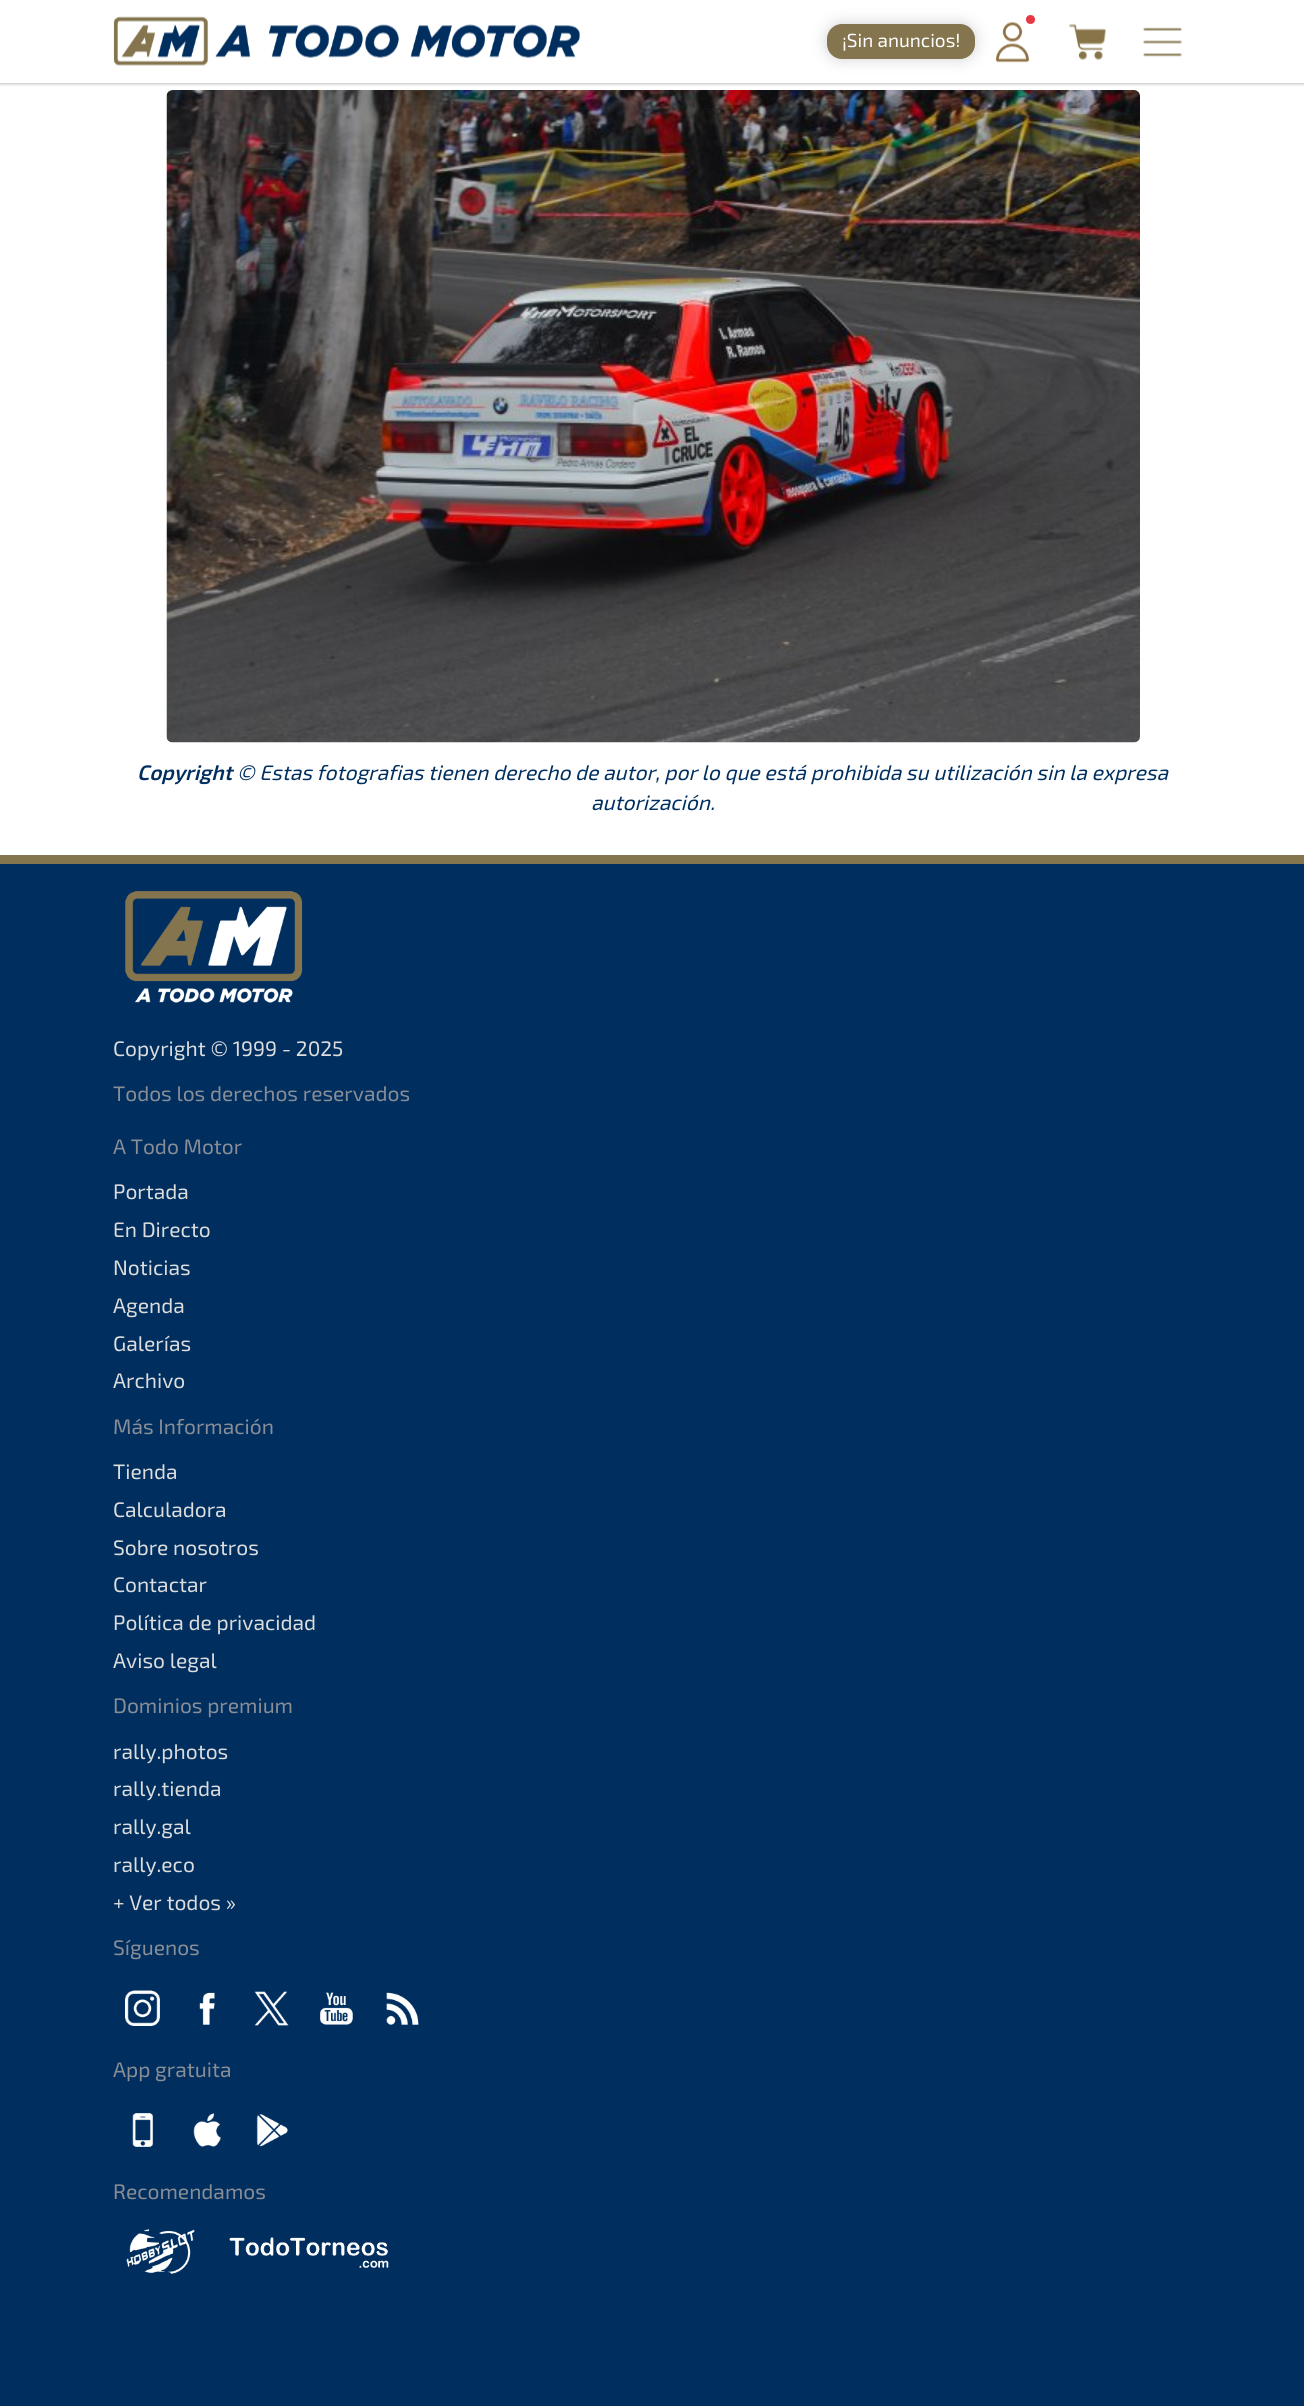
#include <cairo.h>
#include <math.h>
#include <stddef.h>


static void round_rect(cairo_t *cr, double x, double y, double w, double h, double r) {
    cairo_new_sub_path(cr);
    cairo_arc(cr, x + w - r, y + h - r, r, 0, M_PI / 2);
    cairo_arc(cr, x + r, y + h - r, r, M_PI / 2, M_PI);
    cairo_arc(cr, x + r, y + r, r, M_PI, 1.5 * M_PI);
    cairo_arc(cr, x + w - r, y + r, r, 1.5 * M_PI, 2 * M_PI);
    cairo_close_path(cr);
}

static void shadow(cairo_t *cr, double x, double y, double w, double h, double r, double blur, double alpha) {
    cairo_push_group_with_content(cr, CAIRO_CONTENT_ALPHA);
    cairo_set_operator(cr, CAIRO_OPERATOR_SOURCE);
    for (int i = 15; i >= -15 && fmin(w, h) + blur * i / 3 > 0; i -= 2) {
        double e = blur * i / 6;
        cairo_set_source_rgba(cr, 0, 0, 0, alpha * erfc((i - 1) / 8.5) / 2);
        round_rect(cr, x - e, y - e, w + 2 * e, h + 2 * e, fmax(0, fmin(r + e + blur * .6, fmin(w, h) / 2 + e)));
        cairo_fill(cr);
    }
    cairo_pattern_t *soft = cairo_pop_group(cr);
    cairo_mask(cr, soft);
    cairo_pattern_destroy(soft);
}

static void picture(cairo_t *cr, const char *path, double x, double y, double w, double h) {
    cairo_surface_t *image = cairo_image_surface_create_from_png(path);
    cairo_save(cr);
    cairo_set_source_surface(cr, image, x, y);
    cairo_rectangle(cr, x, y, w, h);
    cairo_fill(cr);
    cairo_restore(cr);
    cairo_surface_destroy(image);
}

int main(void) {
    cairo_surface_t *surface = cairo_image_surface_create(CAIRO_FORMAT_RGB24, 1304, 2406);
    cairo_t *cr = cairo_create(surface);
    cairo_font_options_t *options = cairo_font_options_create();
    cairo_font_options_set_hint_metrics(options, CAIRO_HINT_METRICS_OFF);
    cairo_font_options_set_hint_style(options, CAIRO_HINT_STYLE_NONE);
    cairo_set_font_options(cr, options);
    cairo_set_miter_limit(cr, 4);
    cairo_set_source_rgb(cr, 1, 1, 1);
    cairo_paint(cr);
    cairo_set_source_rgb(cr, 0.753, 0.753, 0.753);
    shadow(cr, -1, -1, 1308, 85, 0, 1.5, 1);
    cairo_set_source_rgb(cr, 1, 1, 1);
    cairo_rectangle(cr, 0, 0, 1304, 83);
    cairo_fill(cr);
    picture(cr, "img1.png", 113, 16, 467, 50);
    cairo_set_source_rgb(cr, 0, 0, 0);
    shadow(cr, 827, 24, 148, 35, 15, 7.5, 0.18);
    cairo_set_source_rgb(cr, 0.518, 0.459, 0.306);
    round_rect(cr, 827, 24, 148, 35, 15);
    cairo_fill(cr);
    cairo_select_font_face(cr, "Exo 2", CAIRO_FONT_SLANT_NORMAL, CAIRO_FONT_WEIGHT_NORMAL);
    cairo_set_font_size(cr, 19);
    cairo_set_source_rgb(cr, 1, 1, 1);
    cairo_move_to(cr, 842, 47);
    cairo_show_text(cr, "¡Sin anuncios!");
    picture(cr, "img2.png", 995, 22, 34, 41);
    cairo_set_source_rgb(cr, 0.902, 0.224, 0.275);
    cairo_arc(cr, 1030.5, 19.5, 4.5, 0, 2 * M_PI);
    cairo_fill(cr);
    picture(cr, "img3.png", 1069, 23, 37, 38);
    picture(cr, "img4.png", 1143, 27, 39, 30);
    picture(cr, "img5.png", 166, 90, 974, 653);
    cairo_select_font_face(cr, "Exo 2 SemiBold", CAIRO_FONT_SLANT_ITALIC, CAIRO_FONT_WEIGHT_NORMAL);
    cairo_set_font_size(cr, 21);
    cairo_set_source_rgb(cr, 0, 0.184, 0.373);
    cairo_move_to(cr, 137, 780);
    cairo_show_text(cr, "Copyright");
    cairo_select_font_face(cr, "Exo 2", CAIRO_FONT_SLANT_ITALIC, CAIRO_FONT_WEIGHT_NORMAL);
    cairo_move_to(cr, 237, 780);
    cairo_show_text(cr, "© Estas fotografias tienen derecho de autor, por lo que está prohibida su utilización sin la expresa");
    cairo_move_to(cr, 591, 810);
    cairo_show_text(cr, "autorización.");
    cairo_rectangle(cr, 0, 864, 1304, 1542);
    cairo_fill(cr);
    cairo_set_source_rgb(cr, 0.518, 0.459, 0.306);
    cairo_rectangle(cr, 0, 855, 1304, 9);
    cairo_fill(cr);
    picture(cr, "img6.png", 125, 891, 178, 112);
    cairo_select_font_face(cr, "Exo 2", CAIRO_FONT_SLANT_NORMAL, CAIRO_FONT_WEIGHT_NORMAL);
    cairo_set_source_rgb(cr, 0.867, 0.867, 0.867);
    cairo_move_to(cr, 113, 1056);
    cairo_show_text(cr, "Copyright © 1999 - 2025");
    cairo_set_source_rgb(cr, 0.537, 0.553, 0.588);
    cairo_move_to(cr, 113, 1101);
    cairo_show_text(cr, "Todos los derechos reservados");
    cairo_move_to(cr, 113, 1154);
    cairo_show_text(cr, "A Todo Motor");
    cairo_set_source_rgb(cr, 0.867, 0.867, 0.867);
    cairo_move_to(cr, 113, 1199);
    cairo_show_text(cr, "Portada");
    cairo_move_to(cr, 113, 1237);
    cairo_show_text(cr, "En Directo");
    cairo_move_to(cr, 113, 1275);
    cairo_show_text(cr, "Noticias");
    cairo_move_to(cr, 113, 1313);
    cairo_show_text(cr, "Agenda");
    cairo_move_to(cr, 113, 1351);
    cairo_show_text(cr, "Galerías");
    cairo_move_to(cr, 113, 1388);
    cairo_show_text(cr, "Archivo");
    cairo_set_source_rgb(cr, 0.537, 0.553, 0.588);
    cairo_move_to(cr, 113, 1434);
    cairo_show_text(cr, "Más Información");
    cairo_set_source_rgb(cr, 0.867, 0.867, 0.867);
    cairo_move_to(cr, 113, 1479);
    cairo_show_text(cr, "Tienda");
    cairo_move_to(cr, 113, 1517);
    cairo_show_text(cr, "Calculadora");
    cairo_move_to(cr, 113, 1555);
    cairo_show_text(cr, "Sobre nosotros");
    cairo_move_to(cr, 113, 1592);
    cairo_show_text(cr, "Contactar");
    cairo_move_to(cr, 113, 1630);
    cairo_show_text(cr, "Política de privacidad");
    cairo_move_to(cr, 113, 1668);
    cairo_show_text(cr, "Aviso legal");
    cairo_set_source_rgb(cr, 0.537, 0.553, 0.588);
    cairo_move_to(cr, 113, 1713);
    cairo_show_text(cr, "Dominios premium");
    cairo_set_source_rgb(cr, 0.867, 0.867, 0.867);
    cairo_move_to(cr, 113, 1759);
    cairo_show_text(cr, "rally.photos");
    cairo_move_to(cr, 113, 1796);
    cairo_show_text(cr, "rally.tienda");
    cairo_move_to(cr, 113, 1834);
    cairo_show_text(cr, "rally.gal");
    cairo_move_to(cr, 113, 1872);
    cairo_show_text(cr, "rally.eco");
    cairo_move_to(cr, 113, 1910);
    cairo_show_text(cr, "+ Ver todos »");
    cairo_set_source_rgb(cr, 0.537, 0.553, 0.588);
    cairo_move_to(cr, 113, 1955);
    cairo_show_text(cr, "Síguenos");
    picture(cr, "img7.png", 125, 1990, 35, 36);
    picture(cr, "img8.png", 199, 1992, 16, 33);
    picture(cr, "img9.png", 254, 1991, 35, 35);
    picture(cr, "img10.png", 320, 1992, 33, 33);
    picture(cr, "img11.png", 386, 1992, 33, 33);
    cairo_move_to(cr, 113, 2077);
    cairo_show_text(cr, "App gratuita");
    picture(cr, "img12.png", 132, 2113, 21, 34);
    picture(cr, "img13.png", 193, 2113, 28, 34);
    picture(cr, "img14.png", 256, 2114, 32, 33);
    cairo_move_to(cr, 113, 2199);
    cairo_show_text(cr, "Recomendamos");
    picture(cr, "img15.png", 126, 2229, 69, 45);
    picture(cr, "img16.png", 229, 2237, 160, 31);
    cairo_surface_write_to_png(surface, "page.png");
    cairo_font_options_destroy(options);
    cairo_destroy(cr);
    cairo_surface_destroy(surface);
    return 0;
}
